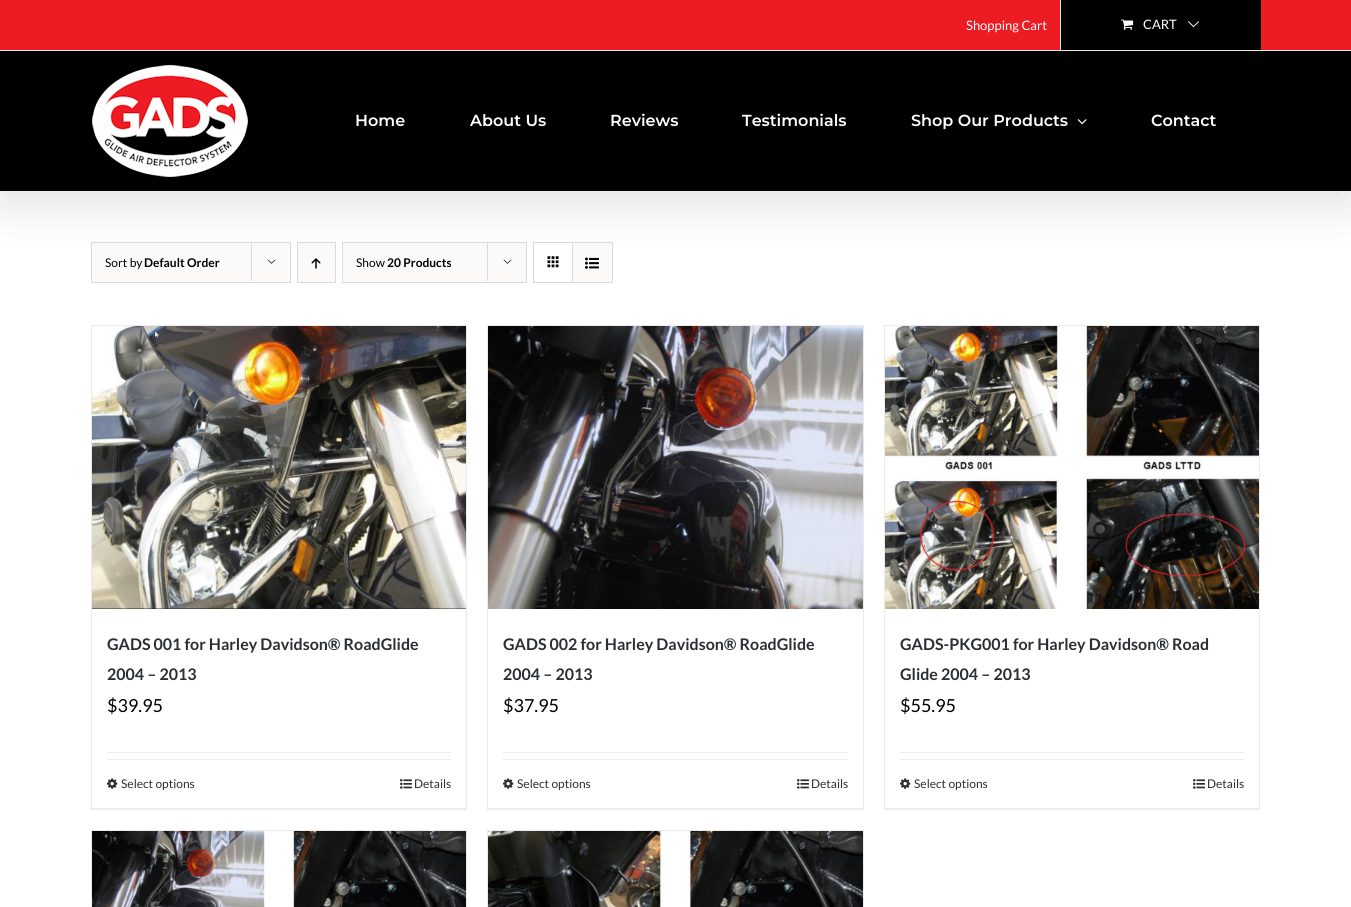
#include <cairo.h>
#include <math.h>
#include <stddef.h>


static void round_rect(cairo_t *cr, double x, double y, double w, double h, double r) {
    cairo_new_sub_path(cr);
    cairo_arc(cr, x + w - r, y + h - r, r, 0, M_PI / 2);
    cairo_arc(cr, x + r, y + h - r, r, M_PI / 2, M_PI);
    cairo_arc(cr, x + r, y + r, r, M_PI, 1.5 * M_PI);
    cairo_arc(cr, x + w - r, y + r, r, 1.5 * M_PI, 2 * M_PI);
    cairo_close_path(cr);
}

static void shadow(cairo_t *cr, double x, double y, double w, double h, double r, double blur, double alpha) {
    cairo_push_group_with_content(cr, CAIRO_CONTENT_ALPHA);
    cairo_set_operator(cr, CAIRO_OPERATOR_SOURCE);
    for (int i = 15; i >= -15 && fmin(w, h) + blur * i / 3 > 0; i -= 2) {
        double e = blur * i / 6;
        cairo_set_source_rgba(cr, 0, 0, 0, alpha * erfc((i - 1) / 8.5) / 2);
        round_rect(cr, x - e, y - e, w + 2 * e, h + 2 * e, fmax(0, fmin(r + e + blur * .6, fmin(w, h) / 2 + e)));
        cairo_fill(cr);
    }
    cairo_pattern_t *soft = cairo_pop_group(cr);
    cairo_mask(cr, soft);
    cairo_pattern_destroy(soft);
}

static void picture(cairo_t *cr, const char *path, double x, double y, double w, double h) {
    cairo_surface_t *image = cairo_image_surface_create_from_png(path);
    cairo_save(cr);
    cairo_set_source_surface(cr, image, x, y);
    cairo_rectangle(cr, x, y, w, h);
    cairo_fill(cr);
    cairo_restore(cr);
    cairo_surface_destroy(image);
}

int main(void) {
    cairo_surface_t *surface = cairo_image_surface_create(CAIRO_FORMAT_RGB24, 1351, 907);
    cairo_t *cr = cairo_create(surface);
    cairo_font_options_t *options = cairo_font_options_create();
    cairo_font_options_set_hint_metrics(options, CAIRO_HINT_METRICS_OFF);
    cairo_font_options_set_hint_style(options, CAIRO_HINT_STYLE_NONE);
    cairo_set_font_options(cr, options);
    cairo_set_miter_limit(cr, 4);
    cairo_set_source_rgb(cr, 1, 1, 1);
    cairo_paint(cr);
    cairo_set_source_rgb(cr, 0.984, 0.98, 0.976);
    cairo_rectangle(cr, 91.5, 242.5, 199, 40);
    cairo_fill_preserve(cr);
    cairo_set_source_rgb(cr, 0.859, 0.859, 0.859);
    cairo_set_line_width(cr, 1);
    cairo_stroke(cr);
    cairo_rectangle(cr, 251, 242, 1, 39);
    cairo_fill(cr);
    picture(cr, "img5.png", 267, 259, 9, 5);
    cairo_set_source_rgb(cr, 0.984, 0.98, 0.976);
    cairo_rectangle(cr, 297.5, 242.5, 38, 40);
    cairo_fill_preserve(cr);
    cairo_set_source_rgb(cr, 0.859, 0.859, 0.859);
    cairo_stroke(cr);
    picture(cr, "img6.png", 311, 258, 10, 11);
    cairo_set_source_rgb(cr, 0.984, 0.98, 0.976);
    cairo_rectangle(cr, 342.5, 242.5, 184, 40);
    cairo_fill_preserve(cr);
    cairo_set_source_rgb(cr, 0.859, 0.859, 0.859);
    cairo_stroke(cr);
    cairo_rectangle(cr, 487, 242, 1, 39);
    cairo_fill(cr);
    picture(cr, "img5.png", 503, 259, 9, 5);
    cairo_rectangle(cr, 533.5, 242.5, 79, 40);
    cairo_stroke(cr);
    cairo_rectangle(cr, 572, 243, 1, 39);
    cairo_fill(cr);
    picture(cr, "img7.png", 547, 256, 12, 12);
    cairo_set_source_rgb(cr, 0.984, 0.98, 0.976);
    cairo_rectangle(cr, 573, 243, 39, 39);
    cairo_fill(cr);
    picture(cr, "img8.png", 585, 257, 14, 12);
    cairo_set_source_rgb(cr, 0, 0, 0);
    shadow(cr, 2, 12, 1347, 188, 0, 25, 0.14);
    cairo_set_source_rgb(cr, 0.929, 0.11, 0.141);
    cairo_rectangle(cr, 0, 0, 1351, 50);
    cairo_fill(cr);
    cairo_set_source_rgb(cr, 0.918, 0.918, 0.918);
    cairo_rectangle(cr, 0, 50, 1351, 1);
    cairo_fill(cr);
    cairo_select_font_face(cr, "Lato", CAIRO_FONT_SLANT_NORMAL, CAIRO_FONT_WEIGHT_NORMAL);
    cairo_set_font_size(cr, 13);
    cairo_set_source_rgb(cr, 1, 1, 1);
    cairo_move_to(cr, 966, 30);
    cairo_show_text(cr, "Shopping Cart");
    cairo_set_source_rgb(cr, 0.918, 0.918, 0.918);
    cairo_rectangle(cr, 1060, 0, 1, 50);
    cairo_fill(cr);
    cairo_set_source_rgb(cr, 0, 0, 0);
    cairo_rectangle(cr, 1061, 0, 200, 50);
    cairo_fill(cr);
    picture(cr, "img1.png", 1121, 19, 13, 11);
    cairo_set_source_rgb(cr, 1, 1, 1);
    cairo_move_to(cr, 1143, 29);
    cairo_show_text(cr, "CART");
    picture(cr, "img2.png", 1188, 21, 11, 7);
    cairo_set_source_rgb(cr, 0, 0, 0);
    cairo_rectangle(cr, 0, 51, 1351, 140);
    cairo_fill(cr);
    cairo_set_source_rgb(cr, 0.918, 0.918, 0.918);
    cairo_rectangle(cr, 0, 191, 1351, 1);
    cairo_fill(cr);
    picture(cr, "img3.png", 92, 65, 156, 112);
    cairo_select_font_face(cr, "Montserrat Thin", CAIRO_FONT_SLANT_NORMAL, CAIRO_FONT_WEIGHT_NORMAL);
    cairo_set_font_size(cr, 16);
    cairo_set_source_rgb(cr, 1, 1, 1);
    cairo_move_to(cr, 355, 126);
    cairo_show_text(cr, "Home");
    cairo_move_to(cr, 470, 126);
    cairo_show_text(cr, "About Us");
    cairo_move_to(cr, 610, 126);
    cairo_show_text(cr, "Reviews");
    cairo_move_to(cr, 742, 126);
    cairo_show_text(cr, "Testimonials");
    cairo_move_to(cr, 911, 126);
    cairo_show_text(cr, "Shop Our Products");
    picture(cr, "img4.png", 1077, 119, 10, 6);
    cairo_move_to(cr, 1151, 126);
    cairo_show_text(cr, "Contact");
    cairo_select_font_face(cr, "Lato", CAIRO_FONT_SLANT_NORMAL, CAIRO_FONT_WEIGHT_NORMAL);
    cairo_set_font_size(cr, 12);
    cairo_set_source_rgb(cr, 0, 0, 0);
    cairo_move_to(cr, 105, 267);
    cairo_show_text(cr, "Sort by");
    cairo_select_font_face(cr, "Lato", CAIRO_FONT_SLANT_NORMAL, CAIRO_FONT_WEIGHT_BOLD);
    cairo_move_to(cr, 144, 267);
    cairo_show_text(cr, "Default Order");
    cairo_select_font_face(cr, "Lato", CAIRO_FONT_SLANT_NORMAL, CAIRO_FONT_WEIGHT_NORMAL);
    cairo_move_to(cr, 356, 267);
    cairo_show_text(cr, "Show");
    cairo_select_font_face(cr, "Lato", CAIRO_FONT_SLANT_NORMAL, CAIRO_FONT_WEIGHT_BOLD);
    cairo_move_to(cr, 387, 267);
    cairo_show_text(cr, "20 Products");
    cairo_set_source_rgb(cr, 0.918, 0.918, 0.918);
    cairo_rectangle(cr, 91, 325, 376, 1);
    cairo_fill(cr);
    cairo_rectangle(cr, 466, 325, 1, 485);
    cairo_fill(cr);
    cairo_rectangle(cr, 91, 808, 376, 2);
    cairo_fill(cr);
    cairo_rectangle(cr, 91, 325, 1, 485);
    cairo_fill(cr);
    picture(cr, "img9.png", 92, 326, 374, 283);
    cairo_set_font_size(cr, 16);
    cairo_set_source_rgb(cr, 0.169, 0.18, 0.196);
    cairo_move_to(cr, 107, 650);
    cairo_show_text(cr, "GADS 001 for Harley Davidson® RoadGlide");
    cairo_move_to(cr, 107, 680);
    cairo_show_text(cr, "2004 – 2013");
    cairo_select_font_face(cr, "Lato", CAIRO_FONT_SLANT_NORMAL, CAIRO_FONT_WEIGHT_NORMAL);
    cairo_set_font_size(cr, 18);
    cairo_set_source_rgb(cr, 0, 0, 0);
    cairo_move_to(cr, 107, 712);
    cairo_show_text(cr, "$39.95");
    cairo_set_source_rgb(cr, 0.918, 0.918, 0.918);
    cairo_rectangle(cr, 107, 752, 344, 1);
    cairo_fill(cr);
    cairo_rectangle(cr, 107, 759, 344, 1);
    cairo_fill(cr);
    picture(cr, "img10.png", 107, 778, 11, 11);
    cairo_set_font_size(cr, 12);
    cairo_set_source_rgb(cr, 0.169, 0.18, 0.196);
    cairo_move_to(cr, 121, 788);
    cairo_show_text(cr, "Select options");
    picture(cr, "img11.png", 400, 779, 12, 10);
    cairo_move_to(cr, 414, 788);
    cairo_show_text(cr, "Details");
    cairo_set_source_rgb(cr, 0.918, 0.918, 0.918);
    cairo_rectangle(cr, 487, 325, 377, 1);
    cairo_fill(cr);
    cairo_rectangle(cr, 863, 325, 1, 485);
    cairo_fill(cr);
    cairo_rectangle(cr, 487, 808, 377, 2);
    cairo_fill(cr);
    cairo_rectangle(cr, 487, 325, 1, 485);
    cairo_fill(cr);
    picture(cr, "img12.png", 488, 326, 375, 283);
    cairo_select_font_face(cr, "Lato", CAIRO_FONT_SLANT_NORMAL, CAIRO_FONT_WEIGHT_BOLD);
    cairo_set_font_size(cr, 16);
    cairo_set_source_rgb(cr, 0.169, 0.18, 0.196);
    cairo_move_to(cr, 503, 650);
    cairo_show_text(cr, "GADS 002 for Harley Davidson® RoadGlide");
    cairo_move_to(cr, 503, 680);
    cairo_show_text(cr, "2004 – 2013");
    cairo_select_font_face(cr, "Lato", CAIRO_FONT_SLANT_NORMAL, CAIRO_FONT_WEIGHT_NORMAL);
    cairo_set_font_size(cr, 18);
    cairo_set_source_rgb(cr, 0, 0, 0);
    cairo_move_to(cr, 503, 712);
    cairo_show_text(cr, "$37.95");
    cairo_set_source_rgb(cr, 0.918, 0.918, 0.918);
    cairo_rectangle(cr, 503, 752, 345, 1);
    cairo_fill(cr);
    cairo_rectangle(cr, 503, 759, 345, 1);
    cairo_fill(cr);
    picture(cr, "img10.png", 503, 778, 11, 11);
    cairo_set_font_size(cr, 12);
    cairo_set_source_rgb(cr, 0.169, 0.18, 0.196);
    cairo_move_to(cr, 517, 788);
    cairo_show_text(cr, "Select options");
    picture(cr, "img11.png", 797, 779, 12, 10);
    cairo_move_to(cr, 811, 788);
    cairo_show_text(cr, "Details");
    cairo_set_source_rgb(cr, 0.918, 0.918, 0.918);
    cairo_rectangle(cr, 884, 325, 376, 1);
    cairo_fill(cr);
    cairo_rectangle(cr, 1259, 325, 1, 485);
    cairo_fill(cr);
    cairo_rectangle(cr, 884, 808, 376, 2);
    cairo_fill(cr);
    cairo_rectangle(cr, 884, 325, 1, 485);
    cairo_fill(cr);
    picture(cr, "img13.png", 885, 326, 374, 283);
    cairo_select_font_face(cr, "Lato", CAIRO_FONT_SLANT_NORMAL, CAIRO_FONT_WEIGHT_BOLD);
    cairo_set_font_size(cr, 16);
    cairo_set_source_rgb(cr, 0.169, 0.18, 0.196);
    cairo_move_to(cr, 900, 650);
    cairo_show_text(cr, "GADS-PKG001 for Harley Davidson® Road");
    cairo_move_to(cr, 900, 680);
    cairo_show_text(cr, "Glide 2004 – 2013");
    cairo_select_font_face(cr, "Lato", CAIRO_FONT_SLANT_NORMAL, CAIRO_FONT_WEIGHT_NORMAL);
    cairo_set_font_size(cr, 18);
    cairo_set_source_rgb(cr, 0, 0, 0);
    cairo_move_to(cr, 900, 712);
    cairo_show_text(cr, "$55.95");
    cairo_set_source_rgb(cr, 0.918, 0.918, 0.918);
    cairo_rectangle(cr, 900, 752, 344, 1);
    cairo_fill(cr);
    cairo_rectangle(cr, 900, 759, 344, 1);
    cairo_fill(cr);
    picture(cr, "img10.png", 900, 778, 11, 11);
    cairo_set_font_size(cr, 12);
    cairo_set_source_rgb(cr, 0.169, 0.18, 0.196);
    cairo_move_to(cr, 914, 788);
    cairo_show_text(cr, "Select options");
    picture(cr, "img11.png", 1193, 779, 12, 10);
    cairo_move_to(cr, 1207, 788);
    cairo_show_text(cr, "Details");
    cairo_set_source_rgb(cr, 0.918, 0.918, 0.918);
    cairo_rectangle(cr, 91, 830, 376, 1);
    cairo_fill(cr);
    cairo_rectangle(cr, 466, 830, 1, 77);
    cairo_fill(cr);
    cairo_rectangle(cr, 91, 830, 1, 77);
    cairo_fill(cr);
    picture(cr, "img14.png", 92, 831, 374, 76);
    cairo_rectangle(cr, 487, 830, 377, 1);
    cairo_fill(cr);
    cairo_rectangle(cr, 863, 830, 1, 77);
    cairo_fill(cr);
    cairo_rectangle(cr, 487, 830, 1, 77);
    cairo_fill(cr);
    picture(cr, "img15.png", 488, 831, 375, 76);
    cairo_surface_write_to_png(surface, "page.png");
    cairo_font_options_destroy(options);
    cairo_destroy(cr);
    cairo_surface_destroy(surface);
    return 0;
}
